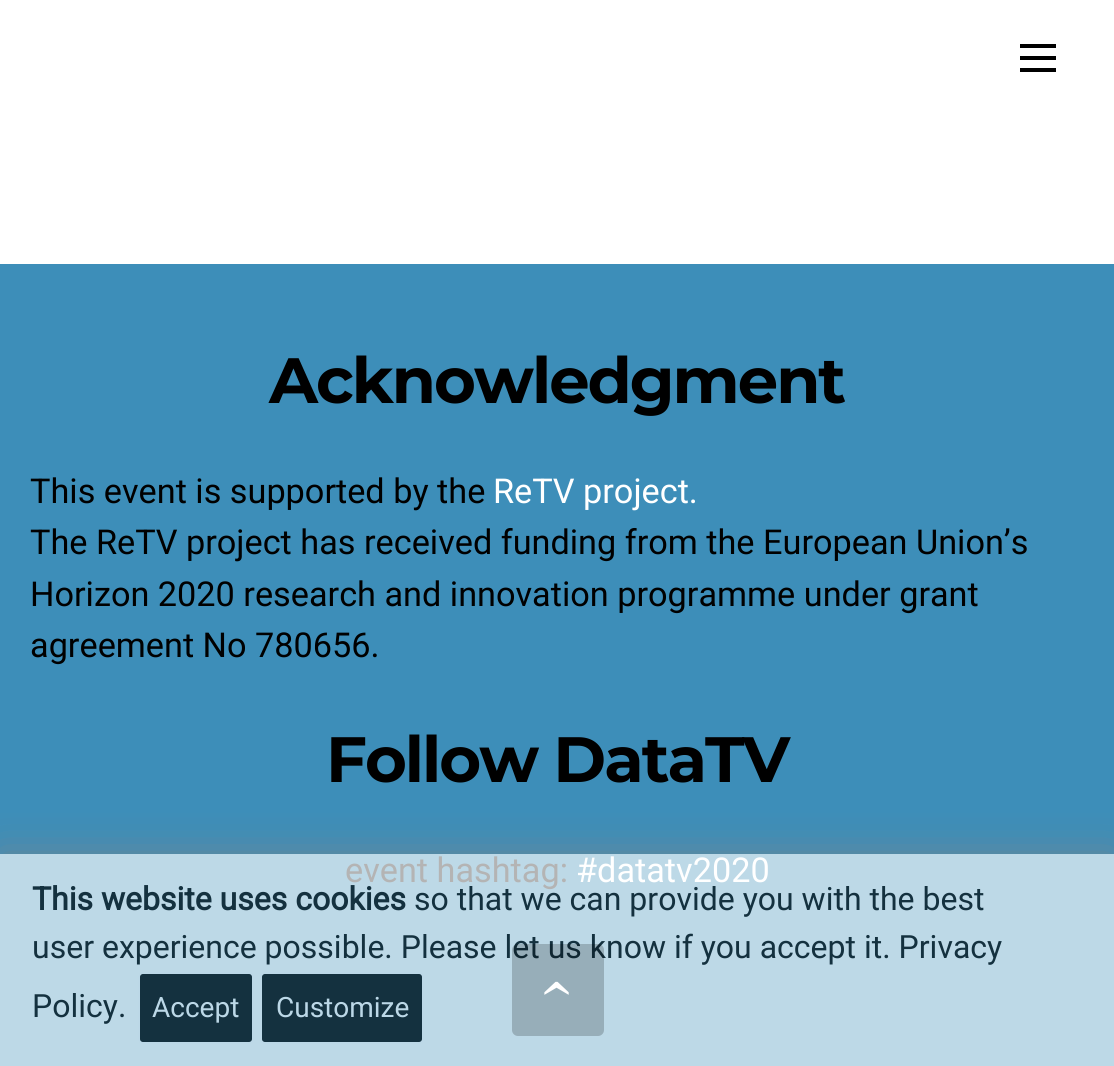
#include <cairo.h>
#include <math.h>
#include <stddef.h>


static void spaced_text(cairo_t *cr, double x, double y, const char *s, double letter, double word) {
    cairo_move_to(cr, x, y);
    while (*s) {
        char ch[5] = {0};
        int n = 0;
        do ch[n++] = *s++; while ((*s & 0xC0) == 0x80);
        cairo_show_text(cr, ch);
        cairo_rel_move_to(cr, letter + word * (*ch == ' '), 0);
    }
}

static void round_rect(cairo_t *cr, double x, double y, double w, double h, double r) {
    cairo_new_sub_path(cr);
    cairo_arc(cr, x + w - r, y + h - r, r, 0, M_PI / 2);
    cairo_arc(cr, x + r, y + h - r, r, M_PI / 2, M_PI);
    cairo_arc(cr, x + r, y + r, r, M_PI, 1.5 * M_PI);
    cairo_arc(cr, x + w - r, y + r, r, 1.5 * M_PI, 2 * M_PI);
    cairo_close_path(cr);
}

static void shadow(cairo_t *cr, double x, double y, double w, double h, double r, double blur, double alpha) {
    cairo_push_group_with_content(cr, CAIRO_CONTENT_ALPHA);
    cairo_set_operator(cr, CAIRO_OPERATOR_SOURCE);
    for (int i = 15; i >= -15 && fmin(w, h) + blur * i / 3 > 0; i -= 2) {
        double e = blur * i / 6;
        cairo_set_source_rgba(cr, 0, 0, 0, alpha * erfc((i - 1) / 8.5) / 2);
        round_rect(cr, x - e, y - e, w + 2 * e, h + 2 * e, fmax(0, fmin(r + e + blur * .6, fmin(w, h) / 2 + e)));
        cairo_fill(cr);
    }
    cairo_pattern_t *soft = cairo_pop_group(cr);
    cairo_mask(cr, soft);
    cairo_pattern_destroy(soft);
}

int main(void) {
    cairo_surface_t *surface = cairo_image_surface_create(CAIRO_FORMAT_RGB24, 1114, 1066);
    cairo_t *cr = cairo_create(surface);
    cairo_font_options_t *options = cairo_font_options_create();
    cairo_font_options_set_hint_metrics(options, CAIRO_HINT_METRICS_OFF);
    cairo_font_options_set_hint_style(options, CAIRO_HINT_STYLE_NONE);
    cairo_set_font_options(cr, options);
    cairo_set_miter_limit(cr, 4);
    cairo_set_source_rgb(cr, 1, 1, 1);
    cairo_paint(cr);
    cairo_set_source_rgb(cr, 0, 0, 0);
    cairo_rectangle(cr, 1020, 68, 36, 4);
    cairo_fill(cr);
    cairo_rectangle(cr, 1020, 56, 36, 4);
    cairo_fill(cr);
    cairo_rectangle(cr, 1020, 44, 36, 4);
    cairo_fill(cr);
    cairo_set_source_rgb(cr, 0.239, 0.557, 0.725);
    cairo_rectangle(cr, 0, 264, 1114, 590);
    cairo_fill(cr);
    cairo_set_source_rgb(cr, 0.741, 0.851, 0.906);
    cairo_rectangle(cr, 0, 854, 1114, 212);
    cairo_fill(cr);
    cairo_select_font_face(cr, "Montserrat", CAIRO_FONT_SLANT_NORMAL, CAIRO_FONT_WEIGHT_BOLD);
    cairo_set_font_size(cr, 64);
    cairo_set_source_rgb(cr, 0, 0, 0);
    spaced_text(cr, 269, 403, "Acknowledgment", -2, 0);
    cairo_select_font_face(cr, "Roboto", CAIRO_FONT_SLANT_NORMAL, CAIRO_FONT_WEIGHT_NORMAL);
    cairo_set_font_size(cr, 34.25);
    cairo_move_to(cr, 30, 503);
    cairo_show_text(cr, "This event is supported by the");
    cairo_set_source_rgb(cr, 1, 1, 1);
    cairo_move_to(cr, 493, 503);
    cairo_show_text(cr, "ReTV project.");
    cairo_set_source_rgb(cr, 0, 0, 0);
    cairo_move_to(cr, 30, 554);
    cairo_show_text(cr, "The ReTV project has received funding from the European Union’s");
    cairo_move_to(cr, 30, 606);
    cairo_show_text(cr, "Horizon 2020 research and innovation programme under grant");
    cairo_move_to(cr, 30, 657);
    cairo_show_text(cr, "agreement No 780656.");
    cairo_select_font_face(cr, "Montserrat", CAIRO_FONT_SLANT_NORMAL, CAIRO_FONT_WEIGHT_BOLD);
    cairo_set_font_size(cr, 64);
    spaced_text(cr, 326, 782, "Follow DataTV", -2, 0);
    cairo_select_font_face(cr, "Roboto", CAIRO_FONT_SLANT_NORMAL, CAIRO_FONT_WEIGHT_NORMAL);
    cairo_set_font_size(cr, 34.25);
    cairo_set_source_rgb(cr, 0.706, 0.706, 0.706);
    cairo_move_to(cr, 345, 882);
    cairo_show_text(cr, "event hashtag:");
    cairo_set_source_rgb(cr, 1, 1, 1);
    cairo_move_to(cr, 576, 882);
    cairo_show_text(cr, "#datatv2020");
    cairo_save(cr);
    cairo_rectangle(cr, 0, 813, 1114, 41);
    cairo_clip(cr);
    cairo_set_source_rgb(cr, 0.412, 0.522, 0.58);
    shadow(cr, 0, 854, 1114, 212, 0, 20, 1);
    cairo_restore(cr);
    cairo_select_font_face(cr, "Roboto", CAIRO_FONT_SLANT_NORMAL, CAIRO_FONT_WEIGHT_BOLD);
    cairo_set_font_size(cr, 32);
    cairo_set_source_rgb(cr, 0.082, 0.192, 0.247);
    cairo_move_to(cr, 32, 910);
    cairo_show_text(cr, "This website uses cookies");
    cairo_select_font_face(cr, "Roboto", CAIRO_FONT_SLANT_NORMAL, CAIRO_FONT_WEIGHT_NORMAL);
    cairo_move_to(cr, 414, 910);
    cairo_show_text(cr, "so that we can provide you with the best");
    cairo_move_to(cr, 32, 958);
    cairo_show_text(cr, "user experience possible. Please let us know if you accept it. Privacy");
    cairo_move_to(cr, 32, 1017);
    cairo_show_text(cr, "Policy.");
    round_rect(cr, 139, 973, 114, 70, 4);
    cairo_fill_preserve(cr);
    cairo_set_source_rgb(cr, 0.737, 0.847, 0.906);
    cairo_stroke(cr);
    cairo_set_font_size(cr, 28);
    cairo_move_to(cr, 152, 1017);
    cairo_show_text(cr, "Accept");
    cairo_set_source_rgb(cr, 0.082, 0.192, 0.247);
    round_rect(cr, 261, 973, 162, 70, 4);
    cairo_fill_preserve(cr);
    cairo_set_source_rgb(cr, 0.737, 0.847, 0.906);
    cairo_stroke(cr);
    cairo_move_to(cr, 276, 1017);
    cairo_show_text(cr, "Customize");
    cairo_set_source_rgba(cr, 0, 0, 0, 0.2);
    round_rect(cr, 512, 944, 92, 92, 6);
    cairo_fill(cr);
    cairo_select_font_face(cr, "Liberation Serif", CAIRO_FONT_SLANT_NORMAL, CAIRO_FONT_WEIGHT_NORMAL);
    cairo_set_font_size(cr, 64);
    cairo_set_source_rgb(cr, 1, 1, 1);
    cairo_save(cr);
    cairo_translate(cr, 571, 999);
    cairo_rotate(cr, -90 * M_PI / 180);
    cairo_move_to(cr, 0, 0);
    cairo_show_text(cr, "›");
    cairo_restore(cr);
    cairo_surface_write_to_png(surface, "page.png");
    cairo_font_options_destroy(options);
    cairo_destroy(cr);
    cairo_surface_destroy(surface);
    return 0;
}
